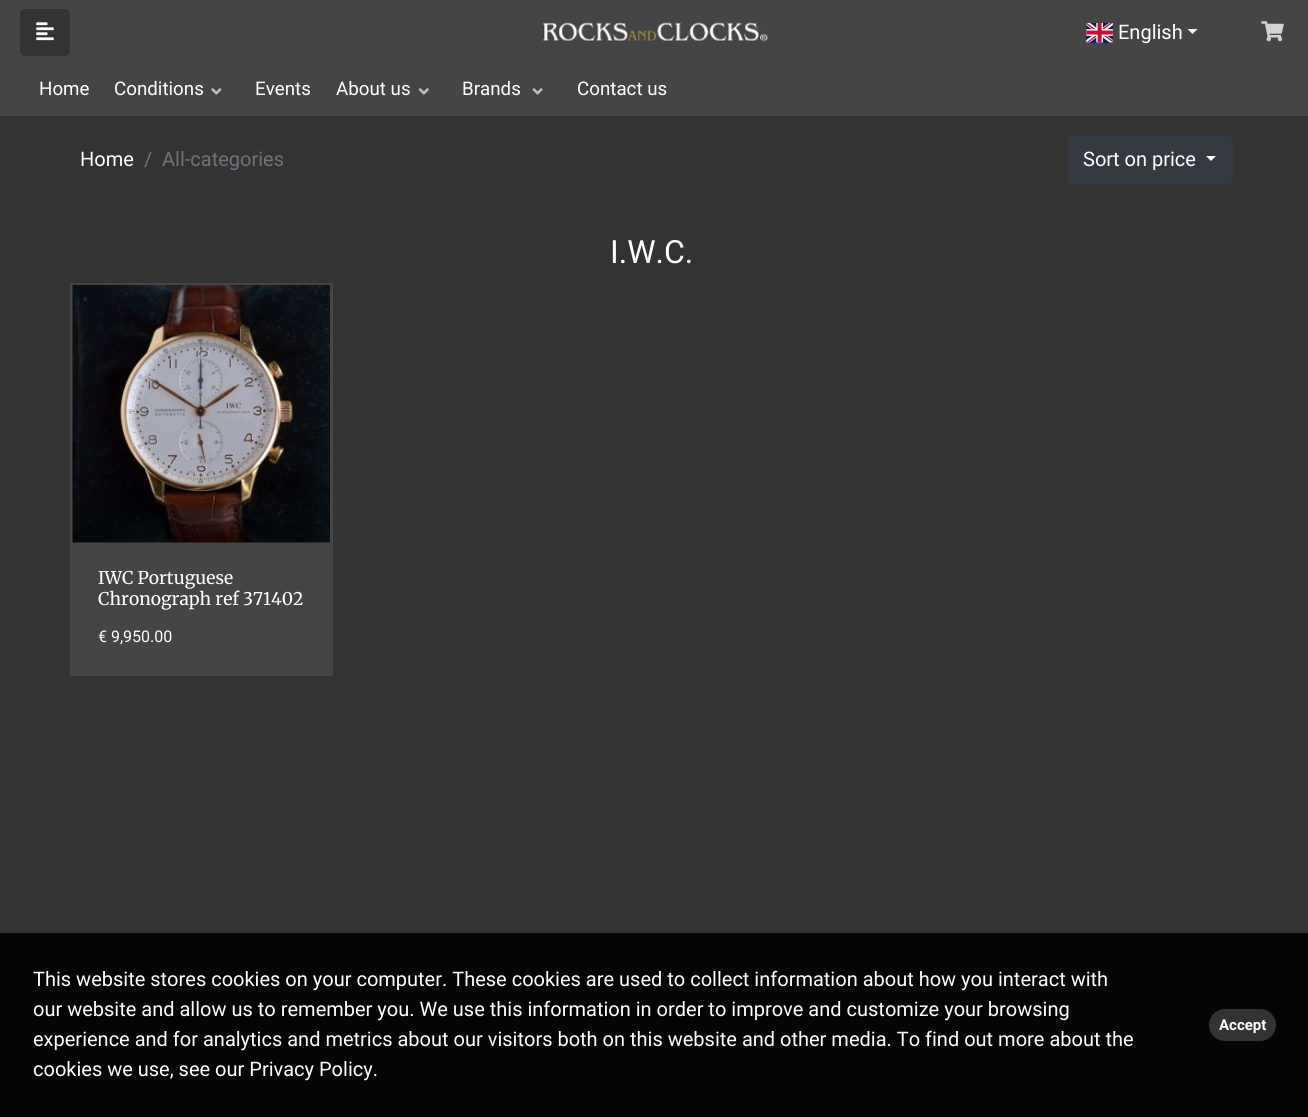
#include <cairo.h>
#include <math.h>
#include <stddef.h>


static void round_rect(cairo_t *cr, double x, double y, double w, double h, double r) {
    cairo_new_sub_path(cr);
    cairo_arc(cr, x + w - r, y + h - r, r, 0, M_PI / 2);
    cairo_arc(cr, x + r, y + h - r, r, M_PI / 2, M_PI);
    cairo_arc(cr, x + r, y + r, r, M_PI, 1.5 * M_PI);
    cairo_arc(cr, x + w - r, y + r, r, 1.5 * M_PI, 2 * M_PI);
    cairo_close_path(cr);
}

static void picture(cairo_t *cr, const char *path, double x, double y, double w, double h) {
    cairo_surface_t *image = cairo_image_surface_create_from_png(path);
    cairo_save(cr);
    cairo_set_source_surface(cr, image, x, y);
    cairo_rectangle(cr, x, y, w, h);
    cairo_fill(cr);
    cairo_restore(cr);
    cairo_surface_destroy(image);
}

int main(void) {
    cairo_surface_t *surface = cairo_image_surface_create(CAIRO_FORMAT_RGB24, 1308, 1117);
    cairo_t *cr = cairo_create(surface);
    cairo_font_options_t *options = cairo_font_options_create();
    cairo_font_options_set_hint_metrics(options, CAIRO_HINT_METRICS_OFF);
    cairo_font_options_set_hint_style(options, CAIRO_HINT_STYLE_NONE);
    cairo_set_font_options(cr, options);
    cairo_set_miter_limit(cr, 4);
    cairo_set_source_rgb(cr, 0.2, 0.2, 0.2);
    cairo_paint(cr);
    cairo_set_source_rgb(cr, 0.271, 0.271, 0.271);
    cairo_rectangle(cr, 0, 0, 1308, 116);
    cairo_fill(cr);
    cairo_set_source_rgb(cr, 0.2, 0.2, 0.2);
    round_rect(cr, 20, 9, 50, 47, 5);
    cairo_fill(cr);
    picture(cr, "img1.png", 36, 22, 18, 19);
    picture(cr, "img2.png", 543, 22, 225, 20);
    picture(cr, "img3.png", 1086, 23, 27, 20);
    cairo_select_font_face(cr, "Roboto", CAIRO_FONT_SLANT_NORMAL, CAIRO_FONT_WEIGHT_NORMAL);
    cairo_set_font_size(cr, 20);
    cairo_set_source_rgb(cr, 1, 1, 1);
    cairo_move_to(cr, 1118, 39);
    cairo_show_text(cr, "English");
    cairo_new_path(cr);
    cairo_move_to(cr, 1187.5, 29);
    cairo_line_to(cr, 1197.5, 29);
    cairo_line_to(cr, 1192.5, 34);
    cairo_close_path(cr);
    cairo_fill(cr);
    picture(cr, "img4.png", 1261, 21, 23, 21);
    cairo_set_font_size(cr, 18.75);
    cairo_move_to(cr, 39, 95);
    cairo_show_text(cr, "Home");
    cairo_move_to(cr, 114, 95);
    cairo_show_text(cr, "Conditions");
    picture(cr, "img5.png", 211, 88, 11, 7);
    cairo_move_to(cr, 255, 95);
    cairo_show_text(cr, "Events");
    cairo_move_to(cr, 336, 95);
    cairo_show_text(cr, "About us");
    picture(cr, "img6.png", 418, 88, 11, 7);
    cairo_move_to(cr, 462, 95);
    cairo_show_text(cr, "Brands");
    picture(cr, "img7.png", 532, 88, 11, 7);
    cairo_move_to(cr, 577, 95);
    cairo_show_text(cr, "Contact us");
    cairo_set_font_size(cr, 20);
    cairo_move_to(cr, 80, 166);
    cairo_show_text(cr, "Home");
    cairo_set_source_rgb(cr, 0.424, 0.459, 0.49);
    cairo_move_to(cr, 144, 166);
    cairo_show_text(cr, "/");
    cairo_move_to(cr, 162, 166);
    cairo_show_text(cr, "All-categories");
    cairo_set_source_rgb(cr, 0.204, 0.227, 0.251);
    round_rect(cr, 1068.5, 136.5, 164, 47, 4.5);
    cairo_fill_preserve(cr);
    cairo_set_line_width(cr, 1);
    cairo_stroke(cr);
    cairo_set_source_rgb(cr, 1, 1, 1);
    cairo_move_to(cr, 1083, 166);
    cairo_show_text(cr, "Sort on price");
    cairo_new_path(cr);
    cairo_move_to(cr, 1206, 156);
    cairo_line_to(cr, 1216, 156);
    cairo_line_to(cr, 1211, 161);
    cairo_close_path(cr);
    cairo_fill(cr);
    cairo_set_font_size(cr, 32);
    cairo_move_to(cr, 610, 263);
    cairo_show_text(cr, "I.W.C.");
    cairo_set_source_rgb(cr, 0.271, 0.271, 0.271);
    cairo_rectangle(cr, 70, 283, 263, 393);
    cairo_fill(cr);
    picture(cr, "img8.png", 72, 285, 258, 258);
    cairo_select_font_face(cr, "Merriweather Light", CAIRO_FONT_SLANT_NORMAL, CAIRO_FONT_WEIGHT_NORMAL);
    cairo_set_font_size(cr, 17.5);
    cairo_set_source_rgb(cr, 1, 1, 1);
    cairo_move_to(cr, 98, 584);
    cairo_show_text(cr, "IWC Portuguese");
    cairo_move_to(cr, 98, 605);
    cairo_show_text(cr, "Chronograph ref 371402");
    cairo_select_font_face(cr, "Roboto", CAIRO_FONT_SLANT_NORMAL, CAIRO_FONT_WEIGHT_NORMAL);
    cairo_set_font_size(cr, 16);
    cairo_move_to(cr, 98, 642);
    cairo_show_text(cr, "€ 9,950.00");
    cairo_set_source_rgb(cr, 0.02, 0.02, 0.02);
    cairo_rectangle(cr, 0, 933, 1308, 184);
    cairo_fill(cr);
    cairo_set_font_size(cr, 20);
    cairo_set_source_rgb(cr, 1, 1, 1);
    cairo_move_to(cr, 33, 986);
    cairo_show_text(cr, "This website stores cookies on your computer. These cookies are used to collect information about how you interact with");
    cairo_move_to(cr, 33, 1016);
    cairo_show_text(cr, "our website and allow us to remember you. We use this information in order to improve and customize your browsing");
    cairo_move_to(cr, 33, 1046);
    cairo_show_text(cr, "experience and for analytics and metrics about our visitors both on this website and other media. To find out more about the");
    cairo_move_to(cr, 33, 1076);
    cairo_show_text(cr, "cookies we use, see our Privacy Policy.");
    cairo_set_source_rgb(cr, 0.2, 0.2, 0.2);
    round_rect(cr, 1209, 1009, 67, 32, 16);
    cairo_fill(cr);
    cairo_select_font_face(cr, "Roboto", CAIRO_FONT_SLANT_NORMAL, CAIRO_FONT_WEIGHT_BOLD);
    cairo_set_font_size(cr, 15);
    cairo_set_source_rgb(cr, 1, 1, 1);
    cairo_move_to(cr, 1219, 1030);
    cairo_show_text(cr, "Accept");
    cairo_surface_write_to_png(surface, "page.png");
    cairo_font_options_destroy(options);
    cairo_destroy(cr);
    cairo_surface_destroy(surface);
    return 0;
}
